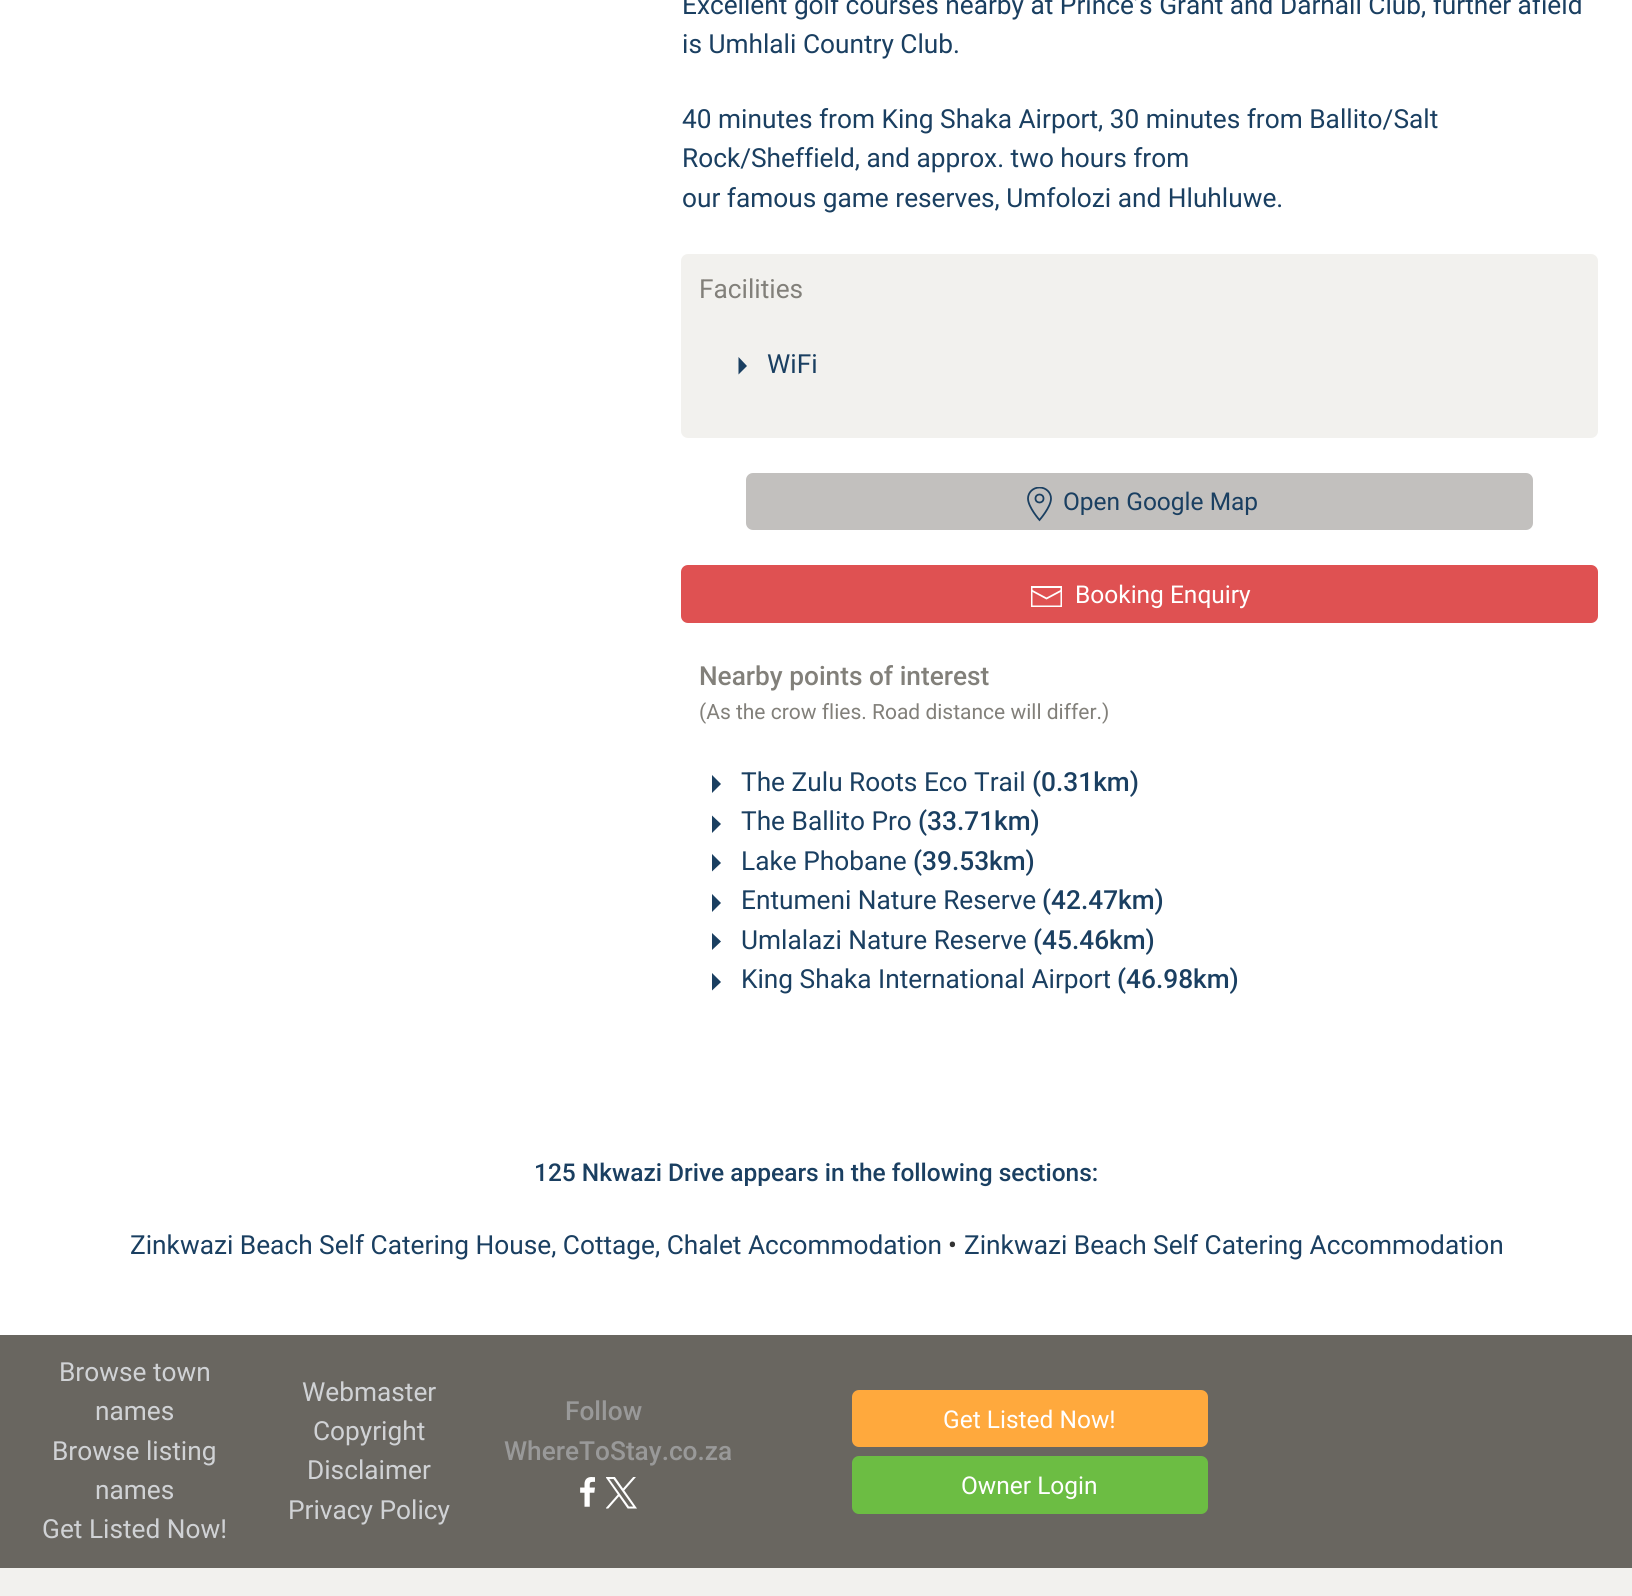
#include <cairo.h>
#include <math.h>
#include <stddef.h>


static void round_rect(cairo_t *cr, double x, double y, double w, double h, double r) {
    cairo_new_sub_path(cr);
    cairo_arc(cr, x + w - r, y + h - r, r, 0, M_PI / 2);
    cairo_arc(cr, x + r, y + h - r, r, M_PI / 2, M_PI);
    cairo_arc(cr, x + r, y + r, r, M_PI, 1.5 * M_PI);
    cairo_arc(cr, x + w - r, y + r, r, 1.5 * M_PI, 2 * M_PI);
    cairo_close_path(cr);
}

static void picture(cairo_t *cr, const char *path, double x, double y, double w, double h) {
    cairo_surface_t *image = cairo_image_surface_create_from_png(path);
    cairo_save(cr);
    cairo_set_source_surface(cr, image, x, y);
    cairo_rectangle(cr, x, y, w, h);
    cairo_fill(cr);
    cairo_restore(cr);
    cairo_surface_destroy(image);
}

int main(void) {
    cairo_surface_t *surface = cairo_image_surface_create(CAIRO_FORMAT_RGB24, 1632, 1596);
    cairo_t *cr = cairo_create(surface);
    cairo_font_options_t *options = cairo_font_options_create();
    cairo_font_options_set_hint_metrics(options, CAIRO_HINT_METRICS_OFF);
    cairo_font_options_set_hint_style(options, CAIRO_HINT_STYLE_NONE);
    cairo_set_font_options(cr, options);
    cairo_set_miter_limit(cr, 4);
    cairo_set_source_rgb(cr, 0.949, 0.945, 0.933);
    cairo_paint(cr);
    cairo_set_source_rgb(cr, 1, 1, 1);
    cairo_rectangle(cr, 0, 0, 1632, 1335);
    cairo_fill(cr);
    cairo_select_font_face(cr, "Roboto", CAIRO_FONT_SLANT_NORMAL, CAIRO_FONT_WEIGHT_NORMAL);
    cairo_set_font_size(cr, 26.25);
    cairo_set_source_rgb(cr, 0.102, 0.247, 0.38);
    cairo_move_to(cr, 682, 14);
    cairo_show_text(cr, "Excellent golf courses nearby at Prince’s Grant and Darnall Club, further afield");
    cairo_move_to(cr, 682, 53);
    cairo_show_text(cr, "is Umhlali Country Club.");
    cairo_move_to(cr, 682, 128);
    cairo_show_text(cr, "40 minutes from King Shaka Airport, 30 minutes from Ballito/Salt");
    cairo_move_to(cr, 682, 167);
    cairo_show_text(cr, "Rock/Sheffield, and approx. two hours from");
    cairo_move_to(cr, 682, 207);
    cairo_show_text(cr, "our famous game reserves, Umfolozi and Hluhluwe.");
    cairo_set_source_rgb(cr, 0.949, 0.945, 0.933);
    round_rect(cr, 681, 254, 917, 184, 7);
    cairo_fill(cr);
    cairo_set_source_rgb(cr, 0.51, 0.502, 0.478);
    cairo_move_to(cr, 699, 298);
    cairo_show_text(cr, "Facilities");
    cairo_set_source_rgb(cr, 0.102, 0.247, 0.38);
    cairo_new_path(cr);
    cairo_move_to(cr, 738.5, 357);
    cairo_line_to(cr, 747, 366);
    cairo_line_to(cr, 738.5, 374.5);
    cairo_close_path(cr);
    cairo_fill(cr);
    cairo_move_to(cr, 767, 373);
    cairo_show_text(cr, "WiFi");
    cairo_set_source_rgb(cr, 0.761, 0.753, 0.745);
    round_rect(cr, 746, 473, 787, 57, 7);
    cairo_fill(cr);
    cairo_save(cr);
    cairo_rectangle(cr, 1022, 487, 35, 35);
    cairo_clip(cr);
    cairo_new_path(cr);
    cairo_move_to(cr, 1039.5, 487.5);
    cairo_curve_to(cr, 1033, 487.5, 1028, 492.5, 1028, 498.5);
    cairo_curve_to(cr, 1028, 507, 1039.5, 520, 1039.5, 520);
    cairo_curve_to(cr, 1039.5, 520, 1051, 507, 1051, 498.5);
    cairo_curve_to(cr, 1051, 492.5, 1046, 487.5, 1039.5, 487.5);
    cairo_close_path(cr);
    cairo_set_source_rgb(cr, 0.102, 0.247, 0.38);
    cairo_set_line_width(cr, 1.8);
    cairo_stroke(cr);
    cairo_restore(cr);
    cairo_arc(cr, 1039.5, 498.5, 4, 0, 2 * M_PI);
    cairo_set_source_rgb(cr, 0.102, 0.247, 0.38);
    cairo_set_line_width(cr, 1.8);
    cairo_stroke(cr);
    cairo_set_font_size(cr, 24.5);
    cairo_move_to(cr, 1063, 510);
    cairo_show_text(cr, "Open Google Map");
    cairo_set_source_rgb(cr, 0.875, 0.318, 0.322);
    round_rect(cr, 681, 565, 917, 58, 7);
    cairo_fill(cr);
    cairo_new_path(cr);
    cairo_move_to(cr, 1031.5, 590.5);
    cairo_line_to(cr, 1046.5, 598.5);
    cairo_line_to(cr, 1061.5, 590.5);
    cairo_set_source_rgb(cr, 1, 1, 1);
    cairo_stroke(cr);
    cairo_new_path(cr);
    cairo_move_to(cr, 1031, 586);
    cairo_line_to(cr, 1031, 607);
    cairo_line_to(cr, 1062, 607);
    cairo_line_to(cr, 1062, 586);
    cairo_close_path(cr);
    cairo_move_to(cr, 1060.5, 605.5);
    cairo_line_to(cr, 1032.5, 605.5);
    cairo_line_to(cr, 1032.5, 588);
    cairo_line_to(cr, 1060.5, 588);
    cairo_close_path(cr);
    cairo_fill(cr);
    cairo_move_to(cr, 1075, 603);
    cairo_show_text(cr, "Booking Enquiry");
    cairo_select_font_face(cr, "Roboto Medium", CAIRO_FONT_SLANT_NORMAL, CAIRO_FONT_WEIGHT_NORMAL);
    cairo_set_font_size(cr, 26.25);
    cairo_set_source_rgb(cr, 0.51, 0.502, 0.478);
    cairo_move_to(cr, 699, 685);
    cairo_show_text(cr, "Nearby points of interest");
    cairo_select_font_face(cr, "Roboto", CAIRO_FONT_SLANT_NORMAL, CAIRO_FONT_WEIGHT_NORMAL);
    cairo_set_font_size(cr, 21);
    cairo_move_to(cr, 699, 719);
    cairo_show_text(cr, "(As the crow flies. Road distance will differ.)");
    cairo_set_source_rgb(cr, 0.102, 0.247, 0.38);
    cairo_new_path(cr);
    cairo_move_to(cr, 712, 775);
    cairo_line_to(cr, 721, 784);
    cairo_line_to(cr, 712, 793);
    cairo_close_path(cr);
    cairo_move_to(cr, 712, 815.5);
    cairo_line_to(cr, 721, 824);
    cairo_line_to(cr, 712, 833);
    cairo_close_path(cr);
    cairo_fill(cr);
    cairo_set_font_size(cr, 26.25);
    cairo_move_to(cr, 741, 791);
    cairo_show_text(cr, "The Zulu Roots Eco Trail");
    cairo_select_font_face(cr, "Roboto Medium", CAIRO_FONT_SLANT_NORMAL, CAIRO_FONT_WEIGHT_NORMAL);
    cairo_move_to(cr, 1032, 791);
    cairo_show_text(cr, "(0.31km)");
    cairo_select_font_face(cr, "Roboto", CAIRO_FONT_SLANT_NORMAL, CAIRO_FONT_WEIGHT_NORMAL);
    cairo_move_to(cr, 741, 830);
    cairo_show_text(cr, "The Ballito Pro");
    cairo_select_font_face(cr, "Roboto Medium", CAIRO_FONT_SLANT_NORMAL, CAIRO_FONT_WEIGHT_NORMAL);
    cairo_move_to(cr, 918, 830);
    cairo_show_text(cr, "(33.71km)");
    cairo_new_path(cr);
    cairo_move_to(cr, 712, 854);
    cairo_line_to(cr, 721, 863);
    cairo_line_to(cr, 712, 871.5);
    cairo_close_path(cr);
    cairo_move_to(cr, 712, 894);
    cairo_line_to(cr, 721, 903);
    cairo_line_to(cr, 712, 912);
    cairo_close_path(cr);
    cairo_fill(cr);
    cairo_select_font_face(cr, "Roboto", CAIRO_FONT_SLANT_NORMAL, CAIRO_FONT_WEIGHT_NORMAL);
    cairo_move_to(cr, 741, 870);
    cairo_show_text(cr, "Lake Phobane");
    cairo_select_font_face(cr, "Roboto Medium", CAIRO_FONT_SLANT_NORMAL, CAIRO_FONT_WEIGHT_NORMAL);
    cairo_move_to(cr, 913, 870);
    cairo_show_text(cr, "(39.53km)");
    cairo_select_font_face(cr, "Roboto", CAIRO_FONT_SLANT_NORMAL, CAIRO_FONT_WEIGHT_NORMAL);
    cairo_move_to(cr, 741, 909);
    cairo_show_text(cr, "Entumeni Nature Reserve");
    cairo_select_font_face(cr, "Roboto Medium", CAIRO_FONT_SLANT_NORMAL, CAIRO_FONT_WEIGHT_NORMAL);
    cairo_move_to(cr, 1042, 909);
    cairo_show_text(cr, "(42.47km)");
    cairo_new_path(cr);
    cairo_move_to(cr, 712, 933);
    cairo_line_to(cr, 721, 941.5);
    cairo_line_to(cr, 712, 950);
    cairo_close_path(cr);
    cairo_move_to(cr, 712, 973);
    cairo_line_to(cr, 721, 982);
    cairo_line_to(cr, 712, 990.5);
    cairo_close_path(cr);
    cairo_fill(cr);
    cairo_select_font_face(cr, "Roboto", CAIRO_FONT_SLANT_NORMAL, CAIRO_FONT_WEIGHT_NORMAL);
    cairo_move_to(cr, 741, 949);
    cairo_show_text(cr, "Umlalazi Nature Reserve");
    cairo_select_font_face(cr, "Roboto Medium", CAIRO_FONT_SLANT_NORMAL, CAIRO_FONT_WEIGHT_NORMAL);
    cairo_move_to(cr, 1033, 949);
    cairo_show_text(cr, "(45.46km)");
    cairo_select_font_face(cr, "Roboto", CAIRO_FONT_SLANT_NORMAL, CAIRO_FONT_WEIGHT_NORMAL);
    cairo_move_to(cr, 741, 988);
    cairo_show_text(cr, "King Shaka International Airport");
    cairo_select_font_face(cr, "Roboto Medium", CAIRO_FONT_SLANT_NORMAL, CAIRO_FONT_WEIGHT_NORMAL);
    cairo_move_to(cr, 1117, 988);
    cairo_show_text(cr, "(46.98km)");
    cairo_set_font_size(cr, 24.5);
    cairo_move_to(cr, 534, 1181);
    cairo_show_text(cr, "125 Nkwazi Drive appears in the following sections:");
    cairo_select_font_face(cr, "Roboto", CAIRO_FONT_SLANT_NORMAL, CAIRO_FONT_WEIGHT_NORMAL);
    cairo_set_font_size(cr, 26.25);
    cairo_move_to(cr, 130, 1254);
    cairo_show_text(cr, "Zinkwazi Beach Self Catering House, Cottage, Chalet Accommodation");
    cairo_set_source_rgb(cr, 0.2, 0.2, 0.2);
    cairo_move_to(cr, 948, 1254);
    cairo_show_text(cr, "•");
    cairo_set_source_rgb(cr, 0.102, 0.247, 0.38);
    cairo_move_to(cr, 964, 1254);
    cairo_show_text(cr, "Zinkwazi Beach Self Catering Accommodation");
    cairo_set_source_rgb(cr, 0.412, 0.4, 0.376);
    cairo_rectangle(cr, 0, 1335, 1632, 233);
    cairo_fill(cr);
    cairo_set_source_rgb(cr, 0.816, 0.824, 0.835);
    cairo_move_to(cr, 59, 1381);
    cairo_show_text(cr, "Browse town");
    cairo_move_to(cr, 95, 1420);
    cairo_show_text(cr, "names");
    cairo_move_to(cr, 52, 1460);
    cairo_show_text(cr, "Browse listing");
    cairo_move_to(cr, 95, 1499);
    cairo_show_text(cr, "names");
    cairo_move_to(cr, 42, 1538);
    cairo_show_text(cr, "Get Listed Now!");
    cairo_move_to(cr, 302, 1401);
    cairo_show_text(cr, "Webmaster");
    cairo_move_to(cr, 313, 1440);
    cairo_show_text(cr, "Copyright");
    cairo_move_to(cr, 307, 1479);
    cairo_show_text(cr, "Disclaimer");
    cairo_move_to(cr, 288, 1519);
    cairo_show_text(cr, "Privacy Policy");
    cairo_select_font_face(cr, "Roboto Medium", CAIRO_FONT_SLANT_NORMAL, CAIRO_FONT_WEIGHT_NORMAL);
    cairo_set_source_rgb(cr, 0.6, 0.6, 0.6);
    cairo_move_to(cr, 565, 1420);
    cairo_show_text(cr, "Follow");
    cairo_move_to(cr, 504, 1460);
    cairo_show_text(cr, "WhereToStay.co.za");
    picture(cr, "img1.png", 580, 1477, 15, 30);
    picture(cr, "img2.png", 606, 1477, 31, 32);
    cairo_set_source_rgb(cr, 1, 0.663, 0.239);
    round_rect(cr, 852, 1390, 356, 57, 7);
    cairo_fill(cr);
    cairo_select_font_face(cr, "Roboto", CAIRO_FONT_SLANT_NORMAL, CAIRO_FONT_WEIGHT_NORMAL);
    cairo_set_font_size(cr, 24.5);
    cairo_set_source_rgb(cr, 1, 1, 1);
    cairo_move_to(cr, 943, 1428);
    cairo_show_text(cr, "Get Listed Now!");
    cairo_set_source_rgb(cr, 0.424, 0.741, 0.263);
    round_rect(cr, 852, 1456, 356, 58, 7);
    cairo_fill(cr);
    cairo_set_source_rgb(cr, 1, 1, 1);
    cairo_move_to(cr, 961, 1494);
    cairo_show_text(cr, "Owner Login");
    cairo_surface_write_to_png(surface, "page.png");
    cairo_font_options_destroy(options);
    cairo_destroy(cr);
    cairo_surface_destroy(surface);
    return 0;
}
